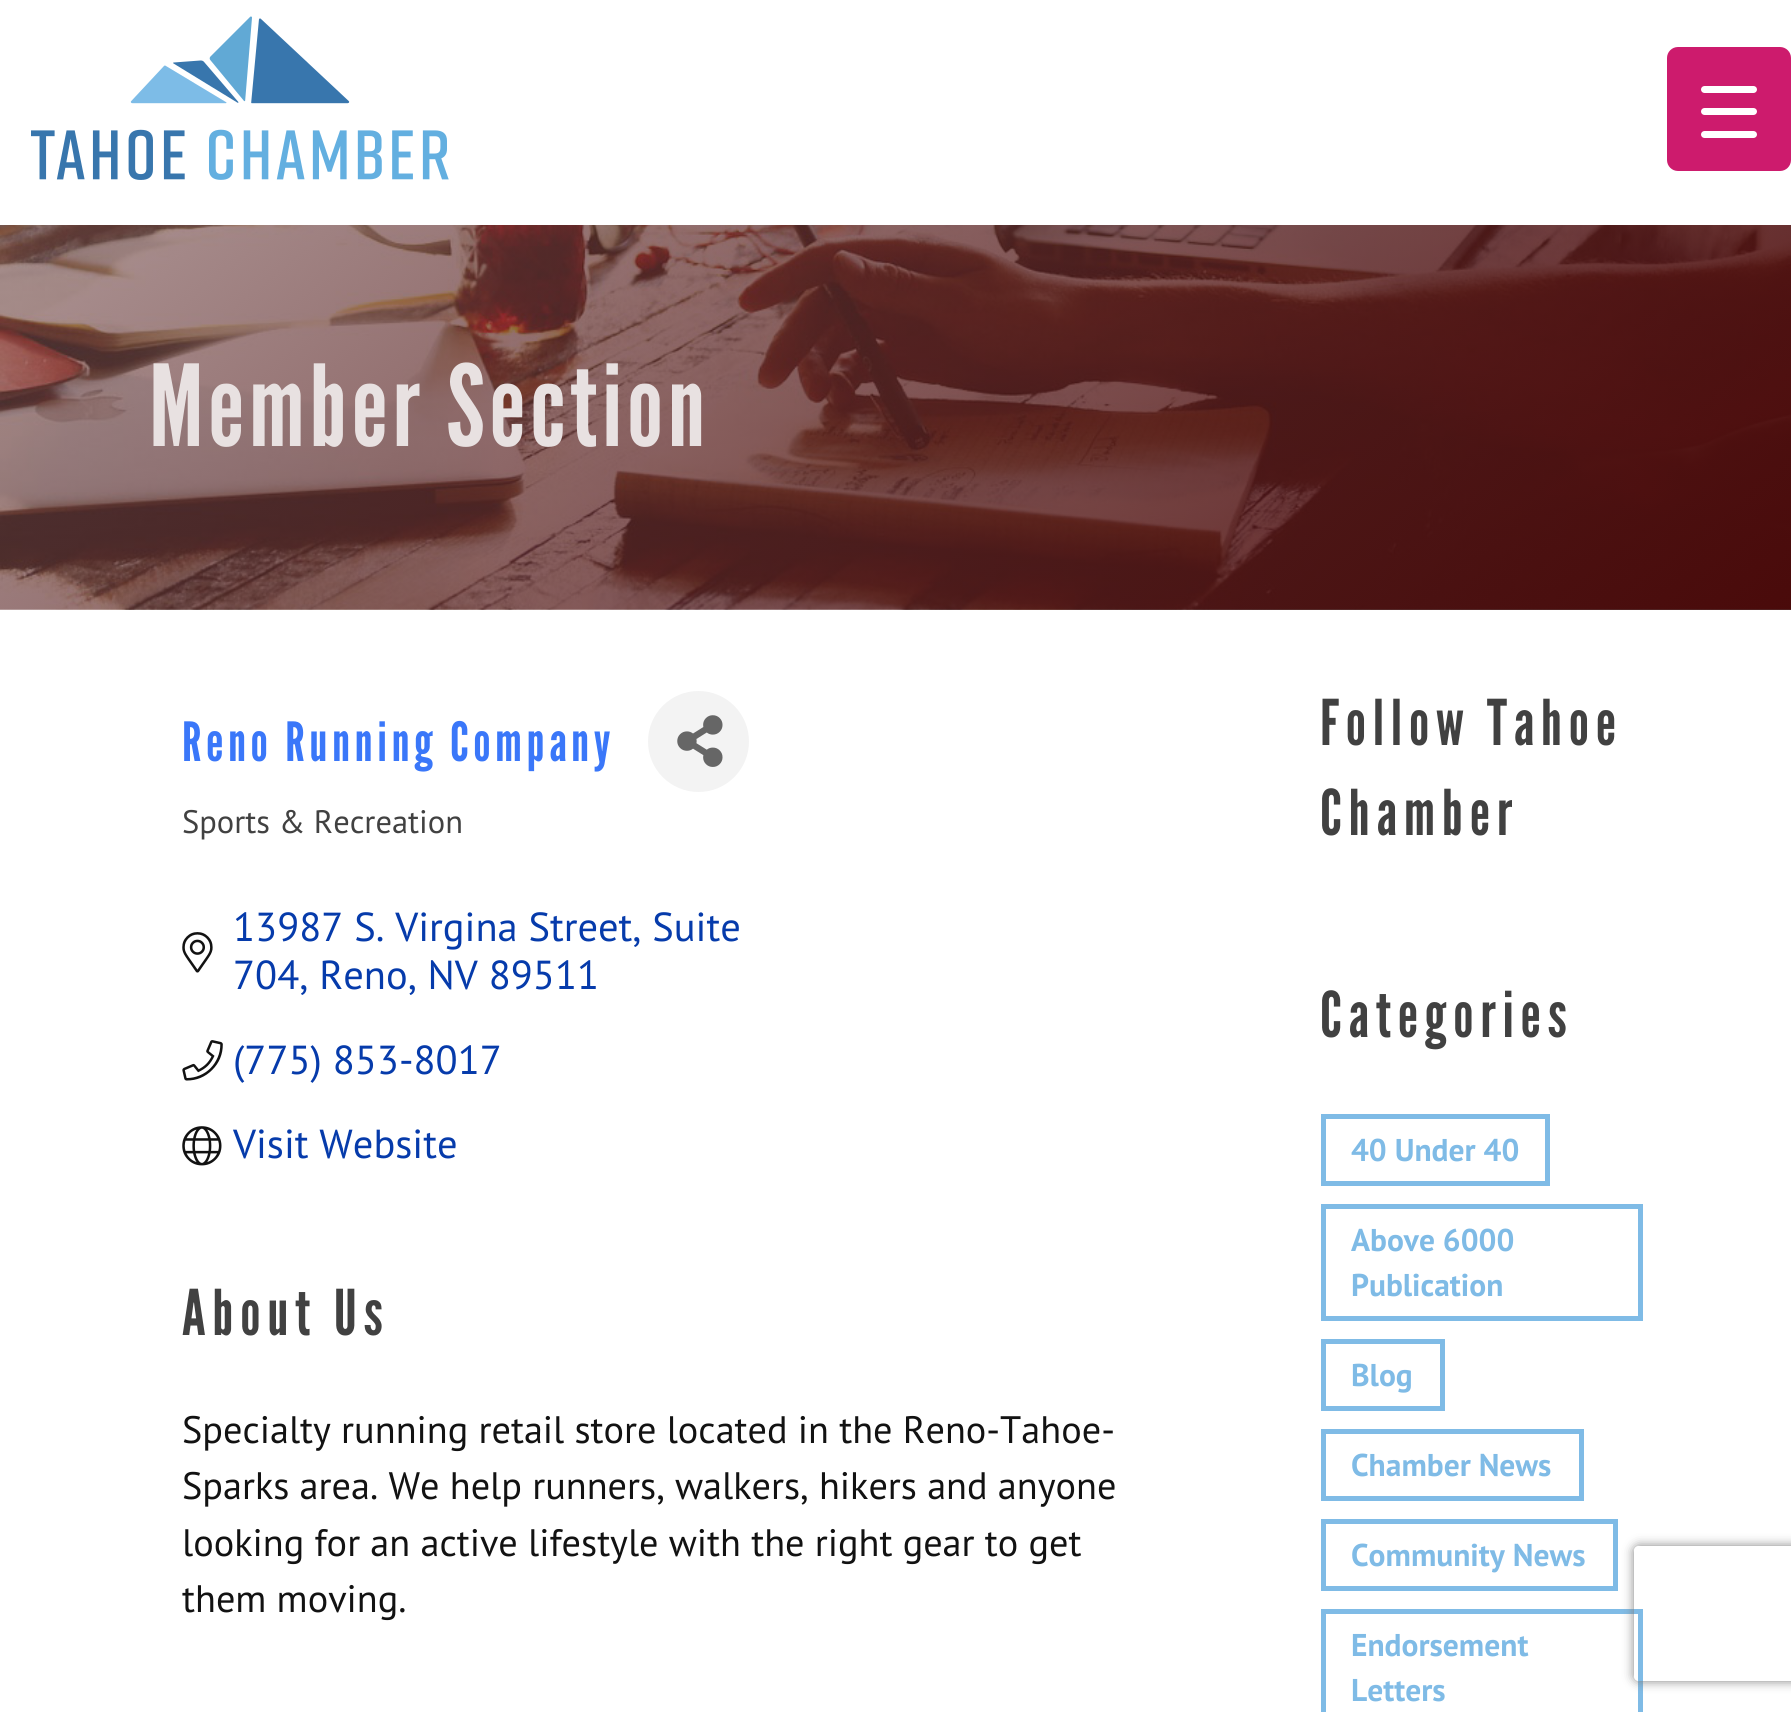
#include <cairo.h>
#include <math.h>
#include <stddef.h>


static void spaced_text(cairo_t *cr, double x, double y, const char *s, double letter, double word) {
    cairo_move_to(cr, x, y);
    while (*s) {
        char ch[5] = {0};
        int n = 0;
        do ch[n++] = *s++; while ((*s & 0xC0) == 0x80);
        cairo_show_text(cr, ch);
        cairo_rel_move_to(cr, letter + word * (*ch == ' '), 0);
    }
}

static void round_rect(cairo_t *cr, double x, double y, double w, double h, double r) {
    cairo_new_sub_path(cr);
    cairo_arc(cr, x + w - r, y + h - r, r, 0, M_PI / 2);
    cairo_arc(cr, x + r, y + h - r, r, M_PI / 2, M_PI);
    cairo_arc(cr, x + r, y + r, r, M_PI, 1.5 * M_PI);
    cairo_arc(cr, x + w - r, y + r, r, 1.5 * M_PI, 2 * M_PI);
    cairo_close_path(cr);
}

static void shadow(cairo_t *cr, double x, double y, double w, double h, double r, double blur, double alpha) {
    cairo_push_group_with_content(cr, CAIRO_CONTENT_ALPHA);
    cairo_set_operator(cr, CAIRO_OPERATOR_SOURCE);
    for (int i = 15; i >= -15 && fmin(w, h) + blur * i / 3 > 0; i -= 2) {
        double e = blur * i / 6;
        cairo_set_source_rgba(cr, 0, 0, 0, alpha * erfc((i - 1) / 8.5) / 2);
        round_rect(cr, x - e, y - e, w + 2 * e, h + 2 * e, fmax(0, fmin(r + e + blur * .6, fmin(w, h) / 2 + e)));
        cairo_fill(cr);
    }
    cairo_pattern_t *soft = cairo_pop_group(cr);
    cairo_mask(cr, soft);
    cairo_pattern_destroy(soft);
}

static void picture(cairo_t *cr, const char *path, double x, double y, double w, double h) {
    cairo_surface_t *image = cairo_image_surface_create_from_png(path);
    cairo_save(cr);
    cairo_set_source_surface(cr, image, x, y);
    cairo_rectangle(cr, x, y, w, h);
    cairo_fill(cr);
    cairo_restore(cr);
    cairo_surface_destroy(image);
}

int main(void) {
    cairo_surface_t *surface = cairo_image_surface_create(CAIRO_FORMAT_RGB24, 1791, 1712);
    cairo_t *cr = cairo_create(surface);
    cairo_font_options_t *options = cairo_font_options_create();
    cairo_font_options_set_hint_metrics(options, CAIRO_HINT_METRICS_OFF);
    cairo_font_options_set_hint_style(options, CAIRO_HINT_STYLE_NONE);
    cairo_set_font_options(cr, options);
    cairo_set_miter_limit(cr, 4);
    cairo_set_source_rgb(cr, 1, 1, 1);
    cairo_paint(cr);
    picture(cr, "img1.png", 31, 16, 418, 164);
    cairo_set_source_rgb(cr, 0.804, 0.106, 0.427);
    round_rect(cr, 1667, 47, 124, 124, 11);
    cairo_fill(cr);
    cairo_set_source_rgb(cr, 1, 1, 1);
    round_rect(cr, 1701, 108, 56, 7, 3.5);
    cairo_fill(cr);
    round_rect(cr, 1701, 86, 56, 7, 3.5);
    cairo_fill(cr);
    round_rect(cr, 1701, 131, 56, 7, 3.5);
    cairo_fill(cr);
    picture(cr, "img2.png", 0, 225, 1791, 385);
    cairo_select_font_face(cr, "League Gothic", CAIRO_FONT_SLANT_NORMAL, CAIRO_FONT_WEIGHT_NORMAL);
    cairo_set_font_size(cr, 112.5);
    cairo_set_source_rgb(cr, 0.91, 0.882, 0.882);
    spaced_text(cr, 149, 446, "Member Section", 4.5, 0);
    cairo_set_font_size(cr, 54);
    cairo_set_source_rgb(cr, 0.227, 0.467, 0.973);
    spaced_text(cr, 182, 761, "Reno Running Company", 4.5, 0);
    cairo_set_source_rgb(cr, 0.953, 0.953, 0.953);
    cairo_new_path(cr);
    cairo_arc(cr, 698.5, 741.5, 50.5, 0, 2 * M_PI);
    cairo_fill(cr);
    picture(cr, "img3.png", 677, 715, 46, 52);
    cairo_select_font_face(cr, "PT Sans", CAIRO_FONT_SLANT_NORMAL, CAIRO_FONT_WEIGHT_NORMAL);
    cairo_set_font_size(cr, 32.5);
    cairo_set_source_rgb(cr, 0.255, 0.255, 0.255);
    cairo_move_to(cr, 182, 833);
    cairo_show_text(cr, "Sports & Recreation");
    picture(cr, "img4.png", 182, 932, 31, 41);
    cairo_set_font_size(cr, 40.5);
    cairo_set_source_rgb(cr, 0.027, 0.231, 0.671);
    cairo_move_to(cr, 233, 941);
    cairo_show_text(cr, "13987 S. Virgina Street, Suite");
    cairo_move_to(cr, 233, 989);
    cairo_show_text(cr, "704, Reno, NV 89511");
    picture(cr, "img5.png", 182, 1040, 41, 41);
    cairo_move_to(cr, 233, 1074);
    cairo_show_text(cr, "(775) 853-8017");
    picture(cr, "img6.png", 182, 1126, 40, 40);
    cairo_move_to(cr, 233, 1158);
    cairo_show_text(cr, "Visit Website");
    cairo_select_font_face(cr, "League Gothic", CAIRO_FONT_SLANT_NORMAL, CAIRO_FONT_WEIGHT_NORMAL);
    cairo_set_font_size(cr, 63);
    cairo_set_source_rgb(cr, 0.255, 0.255, 0.255);
    spaced_text(cr, 182, 1335, "About Us", 6.75, 0);
    cairo_select_font_face(cr, "PT Sans", CAIRO_FONT_SLANT_NORMAL, CAIRO_FONT_WEIGHT_NORMAL);
    cairo_set_font_size(cr, 38.25);
    cairo_set_source_rgb(cr, 0.071, 0.071, 0.071);
    cairo_move_to(cr, 182, 1443);
    cairo_show_text(cr, "Specialty running retail store located in the Reno-Tahoe-");
    cairo_move_to(cr, 182, 1499);
    cairo_show_text(cr, "Sparks area. We help runners, walkers, hikers and anyone");
    cairo_move_to(cr, 182, 1556);
    cairo_show_text(cr, "looking for an active lifestyle with the right gear to get");
    cairo_move_to(cr, 182, 1612);
    cairo_show_text(cr, "them moving.");
    cairo_select_font_face(cr, "League Gothic", CAIRO_FONT_SLANT_NORMAL, CAIRO_FONT_WEIGHT_NORMAL);
    cairo_set_font_size(cr, 63);
    cairo_set_source_rgb(cr, 0.255, 0.255, 0.255);
    spaced_text(cr, 1320, 745, "Follow Tahoe", 6.75, 0);
    spaced_text(cr, 1320, 835, "Chamber", 6.75, 0);
    spaced_text(cr, 1320, 1037, "Categories", 6.75, 0);
    cairo_rectangle(cr, 1323.5, 1116.5, 224, 67);
    cairo_set_source_rgb(cr, 0.498, 0.733, 0.902);
    cairo_set_line_width(cr, 5);
    cairo_stroke(cr);
    cairo_select_font_face(cr, "PT Sans", CAIRO_FONT_SLANT_NORMAL, CAIRO_FONT_WEIGHT_BOLD);
    cairo_set_font_size(cr, 31.5);
    cairo_move_to(cr, 1351, 1161);
    cairo_show_text(cr, "40 Under 40");
    cairo_rectangle(cr, 1323.5, 1206.5, 317, 112);
    cairo_stroke(cr);
    cairo_move_to(cr, 1351, 1251);
    cairo_show_text(cr, "Above 6000");
    cairo_move_to(cr, 1351, 1296);
    cairo_show_text(cr, "Publication");
    cairo_rectangle(cr, 1323.5, 1341.5, 119, 67);
    cairo_stroke(cr);
    cairo_move_to(cr, 1351, 1386);
    cairo_show_text(cr, "Blog");
    cairo_rectangle(cr, 1323.5, 1431.5, 258, 67);
    cairo_stroke(cr);
    cairo_move_to(cr, 1351, 1476);
    cairo_show_text(cr, "Chamber News");
    cairo_rectangle(cr, 1323.5, 1521.5, 292, 67);
    cairo_stroke(cr);
    cairo_move_to(cr, 1351, 1566);
    cairo_show_text(cr, "Community News");
    cairo_rectangle(cr, 1323.5, 1611.5, 317, 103);
    cairo_stroke(cr);
    cairo_move_to(cr, 1351, 1656);
    cairo_show_text(cr, "Endorsement");
    cairo_move_to(cr, 1351, 1701);
    cairo_show_text(cr, "Letters");
    cairo_save(cr);
    cairo_set_fill_rule(cr, CAIRO_FILL_RULE_EVEN_ODD);
    cairo_new_path(cr);
    cairo_move_to(cr, 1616, 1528);
    cairo_line_to(cr, 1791, 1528);
    cairo_line_to(cr, 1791, 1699);
    cairo_line_to(cr, 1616, 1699);
    cairo_close_path(cr);
    cairo_move_to(cr, 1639, 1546);
    cairo_line_to(cr, 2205, 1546);
    cairo_curve_to(cr, 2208, 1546, 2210, 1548, 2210, 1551);
    cairo_line_to(cr, 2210, 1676);
    cairo_curve_to(cr, 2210, 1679, 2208, 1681, 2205, 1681);
    cairo_line_to(cr, 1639, 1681);
    cairo_curve_to(cr, 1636, 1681, 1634, 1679, 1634, 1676);
    cairo_line_to(cr, 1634, 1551);
    cairo_curve_to(cr, 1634, 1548, 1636, 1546, 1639, 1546);
    cairo_close_path(cr);
    cairo_clip(cr);
    cairo_set_source_rgb(cr, 0.502, 0.502, 0.502);
    shadow(cr, 1634, 1546, 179, 135, 5, 5.5, 1);
    cairo_restore(cr);
    cairo_surface_write_to_png(surface, "page.png");
    cairo_font_options_destroy(options);
    cairo_destroy(cr);
    cairo_surface_destroy(surface);
    return 0;
}
